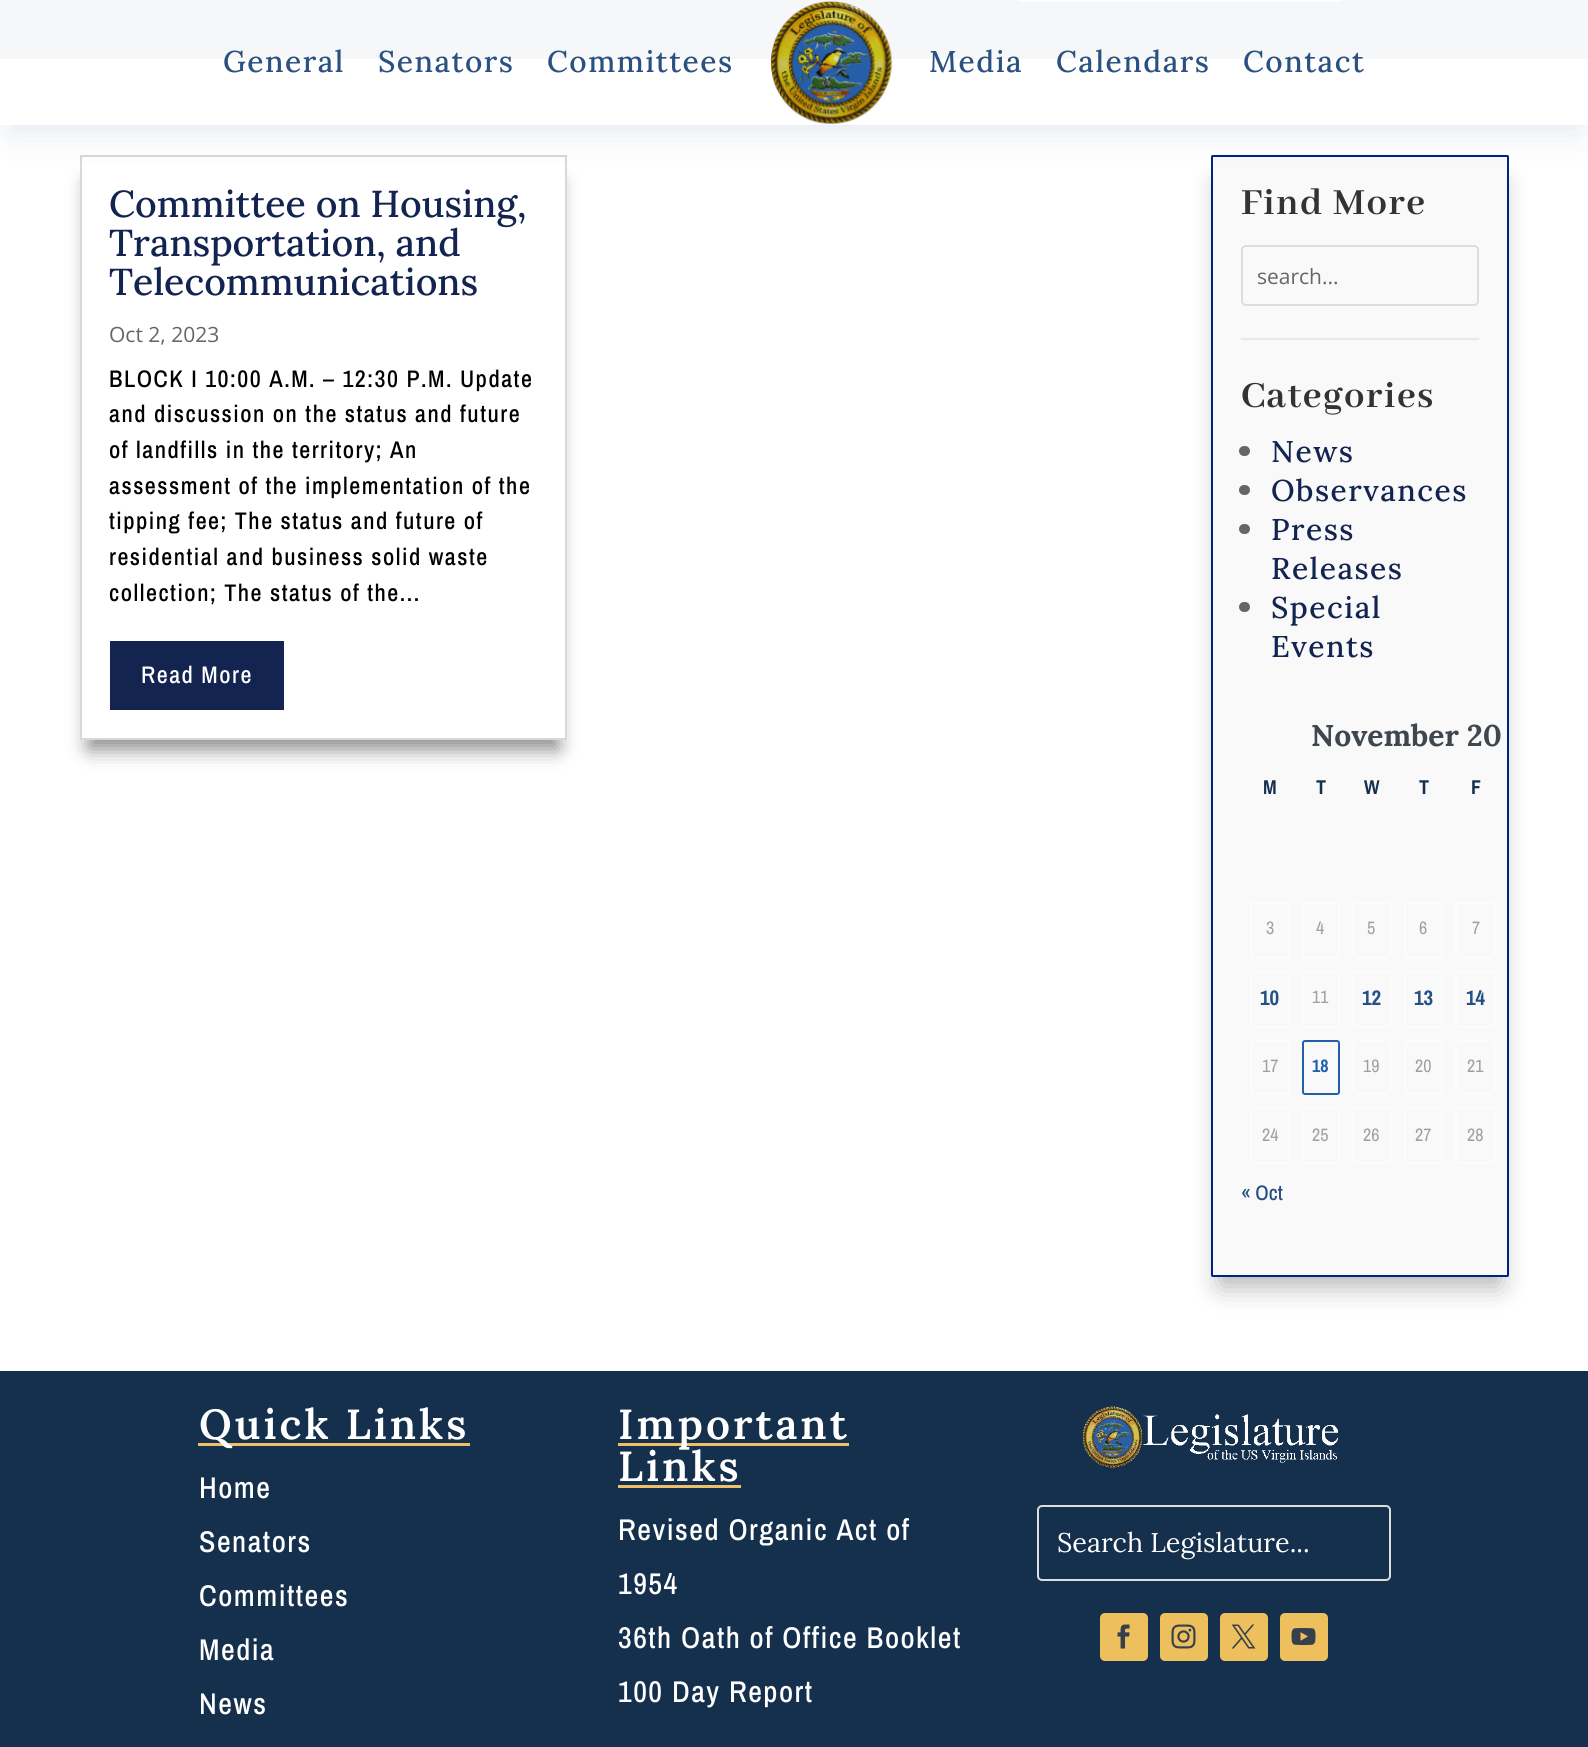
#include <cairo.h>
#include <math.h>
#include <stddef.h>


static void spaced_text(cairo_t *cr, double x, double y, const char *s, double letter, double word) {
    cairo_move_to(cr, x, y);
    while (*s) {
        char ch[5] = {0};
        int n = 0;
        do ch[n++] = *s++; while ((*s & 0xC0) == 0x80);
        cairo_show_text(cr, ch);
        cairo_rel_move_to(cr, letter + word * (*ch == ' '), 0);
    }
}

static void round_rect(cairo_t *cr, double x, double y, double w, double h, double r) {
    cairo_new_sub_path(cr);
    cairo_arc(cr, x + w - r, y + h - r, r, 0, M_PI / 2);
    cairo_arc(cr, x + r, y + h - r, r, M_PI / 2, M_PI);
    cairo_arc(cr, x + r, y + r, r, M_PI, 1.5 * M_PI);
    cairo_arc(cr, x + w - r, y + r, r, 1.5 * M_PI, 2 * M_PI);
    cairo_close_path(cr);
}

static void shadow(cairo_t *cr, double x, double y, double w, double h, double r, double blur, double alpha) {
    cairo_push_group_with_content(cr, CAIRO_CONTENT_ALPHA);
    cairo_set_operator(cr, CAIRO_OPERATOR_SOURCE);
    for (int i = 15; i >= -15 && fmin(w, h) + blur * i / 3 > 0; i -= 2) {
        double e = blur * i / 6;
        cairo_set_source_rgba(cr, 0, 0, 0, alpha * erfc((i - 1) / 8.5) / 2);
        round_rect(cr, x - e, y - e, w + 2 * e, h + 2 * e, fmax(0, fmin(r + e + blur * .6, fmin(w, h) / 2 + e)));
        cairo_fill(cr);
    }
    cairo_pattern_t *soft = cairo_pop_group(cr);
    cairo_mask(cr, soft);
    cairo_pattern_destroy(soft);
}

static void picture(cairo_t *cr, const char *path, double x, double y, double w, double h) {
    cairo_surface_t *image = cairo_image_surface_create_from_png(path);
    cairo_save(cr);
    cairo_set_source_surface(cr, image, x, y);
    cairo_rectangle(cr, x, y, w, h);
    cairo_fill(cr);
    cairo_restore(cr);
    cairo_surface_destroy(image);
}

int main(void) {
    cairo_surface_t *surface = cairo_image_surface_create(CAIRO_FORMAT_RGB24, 1588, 1747);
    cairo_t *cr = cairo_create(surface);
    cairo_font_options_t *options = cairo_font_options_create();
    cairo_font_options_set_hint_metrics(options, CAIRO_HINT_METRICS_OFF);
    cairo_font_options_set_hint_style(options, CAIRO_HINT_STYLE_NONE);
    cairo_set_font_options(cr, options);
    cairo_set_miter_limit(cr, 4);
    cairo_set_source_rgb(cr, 1, 1, 1);
    cairo_paint(cr);
    cairo_set_source_rgb(cr, 0.082, 0.188, 0.298);
    cairo_rectangle(cr, 0, 0, 1588, 59);
    cairo_fill(cr);
    round_rect(cr, 1017, -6, 326, 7, 4);
    cairo_set_source_rgb(cr, 0.867, 0.867, 0.867);
    cairo_stroke(cr);
    cairo_set_source_rgb(cr, 0, 0, 0);
    shadow(cr, 89, 182, 469, 567, 0, 10, 0.47);
    cairo_set_source_rgb(cr, 1, 1, 1);
    cairo_rectangle(cr, 82, 162, 483, 576);
    cairo_fill(cr);
    cairo_rectangle(cr, 81, 156, 485, 583);
    cairo_set_source_rgb(cr, 0.847, 0.847, 0.847);
    cairo_stroke(cr);
    cairo_set_source_rgb(cr, 0, 0, 0);
    shadow(cr, 1220, 182, 280, 1104, 0, 13.5, 0.3);
    cairo_set_source_rgb(cr, 0.976, 0.976, 0.976);
    round_rect(cr, 1212, 156, 296, 1120, 0.5);
    cairo_fill_preserve(cr);
    cairo_set_source_rgb(cr, 0, 0.129, 0.529);
    cairo_stroke(cr);
    cairo_save(cr);
    cairo_set_fill_rule(cr, CAIRO_FILL_RULE_EVEN_ODD);
    cairo_new_path(cr);
    cairo_move_to(cr, 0, 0);
    cairo_line_to(cr, 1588, 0);
    cairo_line_to(cr, 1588, 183);
    cairo_line_to(cr, 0, 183);
    cairo_close_path(cr);
    cairo_move_to(cr, 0, 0);
    cairo_line_to(cr, 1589, 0);
    cairo_line_to(cr, 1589, 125);
    cairo_line_to(cr, 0, 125);
    cairo_close_path(cr);
    cairo_clip(cr);
    cairo_set_source_rgb(cr, 0, 0.129, 0.529);
    shadow(cr, 9, 27, 1571, 107, 0, 16, 0.1);
    cairo_restore(cr);
    cairo_set_source_rgba(cr, 1, 1, 1, 0.96);
    cairo_rectangle(cr, 0, 0, 1588, 125);
    cairo_fill(cr);
    cairo_select_font_face(cr, "Lora Medium", CAIRO_FONT_SLANT_NORMAL, CAIRO_FONT_WEIGHT_NORMAL);
    cairo_set_font_size(cr, 30);
    cairo_set_source_rgb(cr, 0.169, 0.318, 0.51);
    spaced_text(cr, 223, 72, "General", 1.5, 0);
    spaced_text(cr, 378, 72, "Senators", 1.5, 0);
    spaced_text(cr, 547, 72, "Committees", 1.5, 0);
    picture(cr, "img1.png", 770, 1, 123, 124);
    spaced_text(cr, 929, 72, "Media", 1.5, 0);
    spaced_text(cr, 1056, 72, "Calendars", 1.5, 0);
    spaced_text(cr, 1243, 72, "Contact", 1.5, 0);
    cairo_set_font_size(cr, 37.5);
    cairo_set_source_rgb(cr, 0.075, 0.141, 0.314);
    cairo_move_to(cr, 109, 217);
    cairo_show_text(cr, "Committee on Housing,");
    cairo_move_to(cr, 109, 256);
    cairo_show_text(cr, "Transportation, and");
    cairo_move_to(cr, 109, 295);
    cairo_show_text(cr, "Telecommunications");
    cairo_select_font_face(cr, "Open Sans", CAIRO_FONT_SLANT_NORMAL, CAIRO_FONT_WEIGHT_NORMAL);
    cairo_set_font_size(cr, 21);
    cairo_set_source_rgb(cr, 0.4, 0.4, 0.4);
    cairo_move_to(cr, 109, 342);
    cairo_show_text(cr, "Oct 2, 2023");
    cairo_select_font_face(cr, "Archivo Narrow Medium", CAIRO_FONT_SLANT_NORMAL, CAIRO_FONT_WEIGHT_NORMAL);
    cairo_set_font_size(cr, 24);
    cairo_set_source_rgb(cr, 0, 0, 0);
    spaced_text(cr, 109, 387, "BLOCK I 10:00 A.M. – 12:30 P.M. Update", 1.5, 0);
    spaced_text(cr, 109, 422, "and discussion on the status and future", 1.5, 0);
    spaced_text(cr, 109, 458, "of landfills in the territory; An", 1.5, 0);
    spaced_text(cr, 109, 494, "assessment of the implementation of the", 1.5, 0);
    spaced_text(cr, 109, 529, "tipping fee; The status and future of", 1.5, 0);
    spaced_text(cr, 109, 565, "residential and business solid waste", 1.5, 0);
    spaced_text(cr, 109, 601, "collection; The status of the...", 1.5, 0);
    cairo_set_source_rgb(cr, 0.075, 0.141, 0.314);
    cairo_rectangle(cr, 110, 641, 174, 69);
    cairo_fill(cr);
    cairo_set_source_rgb(cr, 1, 1, 1);
    spaced_text(cr, 141, 683, "Read More", 1.5, 0);
    cairo_select_font_face(cr, "Abhaya Libre", CAIRO_FONT_SLANT_NORMAL, CAIRO_FONT_WEIGHT_BOLD);
    cairo_set_font_size(cr, 40.5);
    cairo_set_source_rgb(cr, 0.2, 0.2, 0.2);
    spaced_text(cr, 1241, 214, "Find More", 1.5, 0);
    round_rect(cr, 1242, 246, 236, 59, 4);
    cairo_set_source_rgb(cr, 0.867, 0.867, 0.867);
    cairo_stroke(cr);
    cairo_select_font_face(cr, "Open Sans", CAIRO_FONT_SLANT_NORMAL, CAIRO_FONT_WEIGHT_NORMAL);
    cairo_set_font_size(cr, 21);
    cairo_set_source_rgb(cr, 0.4, 0.4, 0.4);
    cairo_move_to(cr, 1257, 284);
    cairo_show_text(cr, "search...");
    cairo_set_source_rgb(cr, 0.91, 0.91, 0.91);
    cairo_rectangle(cr, 1241, 338, 238, 2);
    cairo_fill(cr);
    cairo_select_font_face(cr, "Abhaya Libre", CAIRO_FONT_SLANT_NORMAL, CAIRO_FONT_WEIGHT_BOLD);
    cairo_set_font_size(cr, 40.5);
    cairo_set_source_rgb(cr, 0.2, 0.2, 0.2);
    spaced_text(cr, 1241, 407, "Categories", 1.5, 0);
    cairo_set_source_rgb(cr, 0.4, 0.4, 0.4);
    round_rect(cr, 1239, 446, 11, 10, 5);
    cairo_fill(cr);
    cairo_select_font_face(cr, "Lora Medium", CAIRO_FONT_SLANT_NORMAL, CAIRO_FONT_WEIGHT_NORMAL);
    cairo_set_font_size(cr, 30);
    cairo_set_source_rgb(cr, 0.075, 0.141, 0.314);
    spaced_text(cr, 1271, 462, "News", 1.5, 0);
    cairo_set_source_rgb(cr, 0.4, 0.4, 0.4);
    round_rect(cr, 1239, 485, 11, 10, 5);
    cairo_fill(cr);
    cairo_set_source_rgb(cr, 0.075, 0.141, 0.314);
    spaced_text(cr, 1271, 501, "Observances", 1.5, 0);
    cairo_set_source_rgb(cr, 0.4, 0.4, 0.4);
    round_rect(cr, 1239, 524, 11, 10, 5);
    cairo_fill(cr);
    cairo_set_source_rgb(cr, 0.075, 0.141, 0.314);
    spaced_text(cr, 1271, 540, "Press", 1.5, 0);
    spaced_text(cr, 1271, 579, "Releases", 1.5, 0);
    cairo_set_source_rgb(cr, 0.4, 0.4, 0.4);
    round_rect(cr, 1239, 602, 11, 10, 5);
    cairo_fill(cr);
    cairo_set_source_rgb(cr, 0.075, 0.141, 0.314);
    spaced_text(cr, 1271, 618, "Special", 1.5, 0);
    spaced_text(cr, 1271, 657, "Events", 1.5, 0);
    cairo_select_font_face(cr, "Lora", CAIRO_FONT_SLANT_NORMAL, CAIRO_FONT_WEIGHT_BOLD);
    cairo_set_source_rgb(cr, 0.251, 0.275, 0.302);
    cairo_move_to(cr, 1311, 746);
    cairo_show_text(cr, "November 20");
    cairo_select_font_face(cr, "Archivo Narrow", CAIRO_FONT_SLANT_NORMAL, CAIRO_FONT_WEIGHT_BOLD);
    cairo_set_font_size(cr, 20);
    cairo_set_source_rgb(cr, 0.082, 0.188, 0.298);
    cairo_move_to(cr, 1263, 794);
    cairo_show_text(cr, "M");
    cairo_move_to(cr, 1316, 794);
    cairo_show_text(cr, "T");
    cairo_move_to(cr, 1364, 794);
    cairo_show_text(cr, "W");
    cairo_move_to(cr, 1419, 794);
    cairo_show_text(cr, "T");
    cairo_move_to(cr, 1471, 794);
    cairo_show_text(cr, "F");
    round_rect(cr, 1251, 903, 38, 55, 2);
    cairo_set_source_rgb(cr, 0.988, 0.988, 0.988);
    cairo_stroke(cr);
    cairo_select_font_face(cr, "Archivo Narrow", CAIRO_FONT_SLANT_NORMAL, CAIRO_FONT_WEIGHT_NORMAL);
    cairo_set_font_size(cr, 18);
    cairo_set_source_rgb(cr, 0.624, 0.624, 0.624);
    cairo_move_to(cr, 1266, 934);
    cairo_show_text(cr, "3");
    round_rect(cr, 1303, 903, 36, 55, 2);
    cairo_set_source_rgb(cr, 0.988, 0.988, 0.988);
    cairo_stroke(cr);
    cairo_set_source_rgb(cr, 0.624, 0.624, 0.624);
    cairo_move_to(cr, 1316, 934);
    cairo_show_text(cr, "4");
    round_rect(cr, 1353, 903, 38, 55, 2);
    cairo_set_source_rgb(cr, 0.988, 0.988, 0.988);
    cairo_stroke(cr);
    cairo_set_source_rgb(cr, 0.624, 0.624, 0.624);
    cairo_move_to(cr, 1367, 934);
    cairo_show_text(cr, "5");
    round_rect(cr, 1405, 903, 37, 55, 2);
    cairo_set_source_rgb(cr, 0.988, 0.988, 0.988);
    cairo_stroke(cr);
    cairo_set_source_rgb(cr, 0.624, 0.624, 0.624);
    cairo_move_to(cr, 1419, 934);
    cairo_show_text(cr, "6");
    round_rect(cr, 1456, 903, 39, 55, 2);
    cairo_set_source_rgb(cr, 0.988, 0.988, 0.988);
    cairo_stroke(cr);
    cairo_set_source_rgb(cr, 0.624, 0.624, 0.624);
    cairo_move_to(cr, 1472, 934);
    cairo_show_text(cr, "7");
    round_rect(cr, 1251, 972, 38, 55, 2);
    cairo_set_source_rgb(cr, 0.988, 0.988, 0.988);
    cairo_stroke(cr);
    cairo_select_font_face(cr, "Archivo Narrow", CAIRO_FONT_SLANT_NORMAL, CAIRO_FONT_WEIGHT_BOLD);
    cairo_set_font_size(cr, 21);
    cairo_set_source_rgb(cr, 0.145, 0.314, 0.522);
    cairo_move_to(cr, 1260, 1005);
    cairo_show_text(cr, "10");
    round_rect(cr, 1303, 972, 36, 55, 2);
    cairo_set_source_rgb(cr, 0.988, 0.988, 0.988);
    cairo_stroke(cr);
    cairo_select_font_face(cr, "Archivo Narrow", CAIRO_FONT_SLANT_NORMAL, CAIRO_FONT_WEIGHT_NORMAL);
    cairo_set_font_size(cr, 18);
    cairo_set_source_rgb(cr, 0.624, 0.624, 0.624);
    cairo_move_to(cr, 1312, 1003);
    cairo_show_text(cr, "11");
    round_rect(cr, 1353, 972, 38, 55, 2);
    cairo_set_source_rgb(cr, 0.988, 0.988, 0.988);
    cairo_stroke(cr);
    cairo_select_font_face(cr, "Archivo Narrow", CAIRO_FONT_SLANT_NORMAL, CAIRO_FONT_WEIGHT_BOLD);
    cairo_set_font_size(cr, 21);
    cairo_set_source_rgb(cr, 0.145, 0.314, 0.522);
    cairo_move_to(cr, 1362, 1005);
    cairo_show_text(cr, "12");
    round_rect(cr, 1405, 972, 37, 55, 2);
    cairo_set_source_rgb(cr, 0.988, 0.988, 0.988);
    cairo_stroke(cr);
    cairo_set_source_rgb(cr, 0.145, 0.314, 0.522);
    cairo_move_to(cr, 1414, 1005);
    cairo_show_text(cr, "13");
    round_rect(cr, 1456, 972, 39, 55, 2);
    cairo_set_source_rgb(cr, 0.988, 0.988, 0.988);
    cairo_stroke(cr);
    cairo_set_source_rgb(cr, 0.145, 0.314, 0.522);
    cairo_move_to(cr, 1466, 1005);
    cairo_show_text(cr, "14");
    round_rect(cr, 1251, 1041, 38, 53, 2);
    cairo_set_source_rgb(cr, 0.988, 0.988, 0.988);
    cairo_stroke(cr);
    cairo_select_font_face(cr, "Archivo Narrow", CAIRO_FONT_SLANT_NORMAL, CAIRO_FONT_WEIGHT_NORMAL);
    cairo_set_font_size(cr, 18);
    cairo_set_source_rgb(cr, 0.624, 0.624, 0.624);
    cairo_move_to(cr, 1262, 1072);
    cairo_show_text(cr, "17");
    round_rect(cr, 1303, 1041, 36, 53, 2);
    cairo_set_source_rgb(cr, 0.137, 0.373, 0.667);
    cairo_stroke(cr);
    cairo_select_font_face(cr, "Archivo Narrow", CAIRO_FONT_SLANT_NORMAL, CAIRO_FONT_WEIGHT_BOLD);
    cairo_move_to(cr, 1312, 1072);
    cairo_show_text(cr, "18");
    round_rect(cr, 1353, 1041, 38, 53, 2);
    cairo_set_source_rgb(cr, 0.988, 0.988, 0.988);
    cairo_stroke(cr);
    cairo_select_font_face(cr, "Archivo Narrow", CAIRO_FONT_SLANT_NORMAL, CAIRO_FONT_WEIGHT_NORMAL);
    cairo_set_source_rgb(cr, 0.624, 0.624, 0.624);
    cairo_move_to(cr, 1363, 1072);
    cairo_show_text(cr, "19");
    round_rect(cr, 1405, 1041, 37, 53, 2);
    cairo_set_source_rgb(cr, 0.988, 0.988, 0.988);
    cairo_stroke(cr);
    cairo_set_source_rgb(cr, 0.624, 0.624, 0.624);
    cairo_move_to(cr, 1415, 1072);
    cairo_show_text(cr, "20");
    round_rect(cr, 1456, 1041, 39, 53, 2);
    cairo_set_source_rgb(cr, 0.988, 0.988, 0.988);
    cairo_stroke(cr);
    cairo_set_source_rgb(cr, 0.624, 0.624, 0.624);
    cairo_move_to(cr, 1467, 1072);
    cairo_show_text(cr, "21");
    round_rect(cr, 1251, 1108, 38, 55, 2);
    cairo_set_source_rgb(cr, 0.988, 0.988, 0.988);
    cairo_stroke(cr);
    cairo_set_source_rgb(cr, 0.624, 0.624, 0.624);
    cairo_move_to(cr, 1262, 1141);
    cairo_show_text(cr, "24");
    round_rect(cr, 1303, 1108, 36, 55, 2);
    cairo_set_source_rgb(cr, 0.988, 0.988, 0.988);
    cairo_stroke(cr);
    cairo_set_source_rgb(cr, 0.624, 0.624, 0.624);
    cairo_move_to(cr, 1312, 1141);
    cairo_show_text(cr, "25");
    round_rect(cr, 1353, 1108, 38, 55, 2);
    cairo_set_source_rgb(cr, 0.988, 0.988, 0.988);
    cairo_stroke(cr);
    cairo_set_source_rgb(cr, 0.624, 0.624, 0.624);
    cairo_move_to(cr, 1363, 1141);
    cairo_show_text(cr, "26");
    round_rect(cr, 1405, 1108, 37, 55, 2);
    cairo_set_source_rgb(cr, 0.988, 0.988, 0.988);
    cairo_stroke(cr);
    cairo_set_source_rgb(cr, 0.624, 0.624, 0.624);
    cairo_move_to(cr, 1415, 1141);
    cairo_show_text(cr, "27");
    round_rect(cr, 1456, 1108, 39, 55, 2);
    cairo_set_source_rgb(cr, 0.988, 0.988, 0.988);
    cairo_stroke(cr);
    cairo_set_source_rgb(cr, 0.624, 0.624, 0.624);
    cairo_move_to(cr, 1467, 1141);
    cairo_show_text(cr, "28");
    cairo_select_font_face(cr, "Archivo Narrow Medium", CAIRO_FONT_SLANT_NORMAL, CAIRO_FONT_WEIGHT_NORMAL);
    cairo_set_font_size(cr, 21);
    cairo_set_source_rgb(cr, 0.145, 0.314, 0.522);
    cairo_move_to(cr, 1241, 1200);
    cairo_show_text(cr, "« Oct");
    cairo_set_source_rgb(cr, 0.082, 0.188, 0.298);
    cairo_rectangle(cr, 0, 1371, 1588, 376);
    cairo_fill(cr);
    cairo_set_source_rgb(cr, 0.933, 0.757, 0.408);
    cairo_rectangle(cr, 198, 1443, 272, 3);
    cairo_fill(cr);
    cairo_select_font_face(cr, "Lora SemiBold", CAIRO_FONT_SLANT_NORMAL, CAIRO_FONT_WEIGHT_NORMAL);
    cairo_set_font_size(cr, 42);
    cairo_set_source_rgb(cr, 1, 1, 1);
    spaced_text(cr, 199, 1439, "Quick Links", 3, 0);
    cairo_select_font_face(cr, "Archivo Narrow Medium", CAIRO_FONT_SLANT_NORMAL, CAIRO_FONT_WEIGHT_NORMAL);
    cairo_set_font_size(cr, 30);
    spaced_text(cr, 199, 1498, "Home", 1.5, 0);
    spaced_text(cr, 199, 1552, "Senators", 1.5, 0);
    spaced_text(cr, 199, 1606, "Committees", 1.5, 0);
    spaced_text(cr, 199, 1660, "Media", 1.5, 0);
    spaced_text(cr, 199, 1714, "News", 1.5, 0);
    cairo_set_source_rgb(cr, 0.933, 0.757, 0.408);
    cairo_rectangle(cr, 618, 1443, 231, 3);
    cairo_fill(cr);
    cairo_select_font_face(cr, "Lora SemiBold", CAIRO_FONT_SLANT_NORMAL, CAIRO_FONT_WEIGHT_NORMAL);
    cairo_set_font_size(cr, 42);
    cairo_set_source_rgb(cr, 1, 1, 1);
    spaced_text(cr, 618, 1439, "Important", 3, 0);
    spaced_text(cr, 618, 1481, "Links", 3, 0);
    cairo_set_source_rgb(cr, 0.933, 0.757, 0.408);
    cairo_rectangle(cr, 618, 1485, 123, 3);
    cairo_fill(cr);
    cairo_select_font_face(cr, "Archivo Narrow Medium", CAIRO_FONT_SLANT_NORMAL, CAIRO_FONT_WEIGHT_NORMAL);
    cairo_set_font_size(cr, 30);
    cairo_set_source_rgb(cr, 1, 1, 1);
    spaced_text(cr, 618, 1540, "Revised Organic Act of", 1.5, 0);
    spaced_text(cr, 618, 1594, "1954", 1.5, 0);
    spaced_text(cr, 618, 1648, "36th Oath of Office Booklet", 1.5, 0);
    spaced_text(cr, 618, 1702, "100 Day Report", 1.5, 0);
    picture(cr, "img2.png", 1083, 1406, 255, 62);
    round_rect(cr, 1038, 1506, 352, 74, 4);
    cairo_set_source_rgb(cr, 0.867, 0.867, 0.867);
    cairo_stroke(cr);
    cairo_select_font_face(cr, "Lora", CAIRO_FONT_SLANT_NORMAL, CAIRO_FONT_WEIGHT_NORMAL);
    cairo_set_font_size(cr, 27);
    cairo_set_source_rgb(cr, 1, 1, 1);
    cairo_move_to(cr, 1057, 1552);
    cairo_show_text(cr, "Search Legislature...");
    cairo_set_source_rgb(cr, 0.933, 0.753, 0.365);
    round_rect(cr, 1100, 1613, 48, 48, 5);
    cairo_fill(cr);
    picture(cr, "img3.png", 1117, 1624, 13, 25);
    round_rect(cr, 1160, 1613, 48, 48, 5);
    cairo_fill(cr);
    picture(cr, "img4.png", 1171, 1624, 25, 25);
    round_rect(cr, 1220, 1613, 48, 48, 5);
    cairo_fill(cr);
    picture(cr, "img5.png", 1231, 1624, 25, 25);
    round_rect(cr, 1280, 1613, 48, 48, 5);
    cairo_fill(cr);
    picture(cr, "img6.png", 1291, 1628, 25, 17);
    cairo_surface_write_to_png(surface, "page.png");
    cairo_font_options_destroy(options);
    cairo_destroy(cr);
    cairo_surface_destroy(surface);
    return 0;
}
